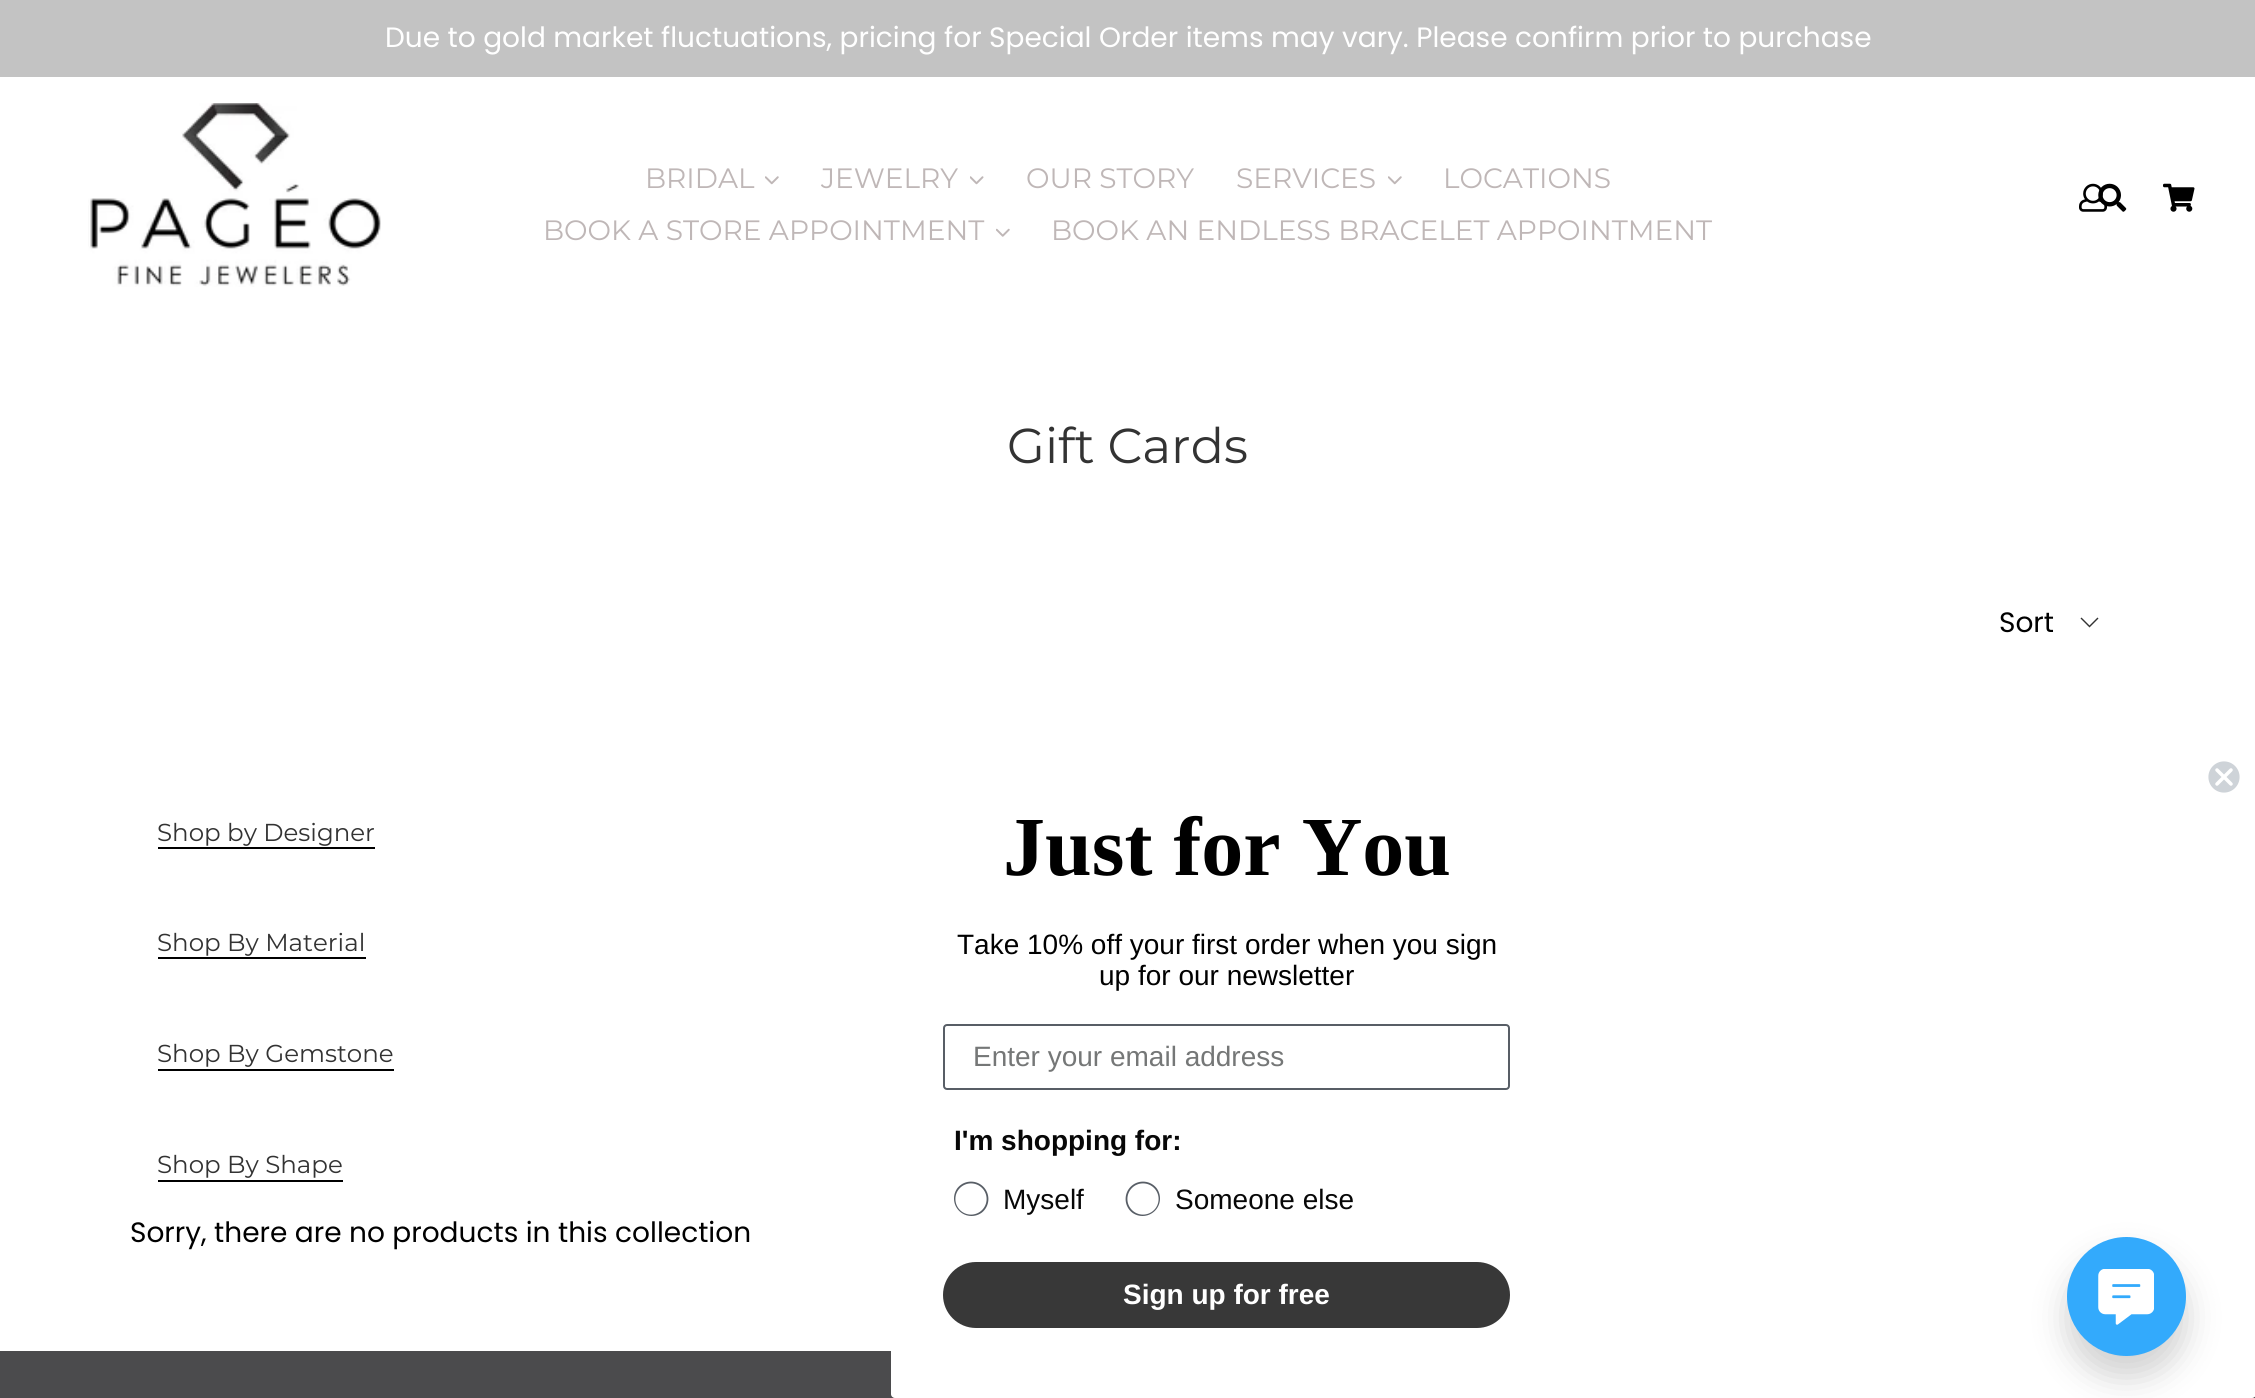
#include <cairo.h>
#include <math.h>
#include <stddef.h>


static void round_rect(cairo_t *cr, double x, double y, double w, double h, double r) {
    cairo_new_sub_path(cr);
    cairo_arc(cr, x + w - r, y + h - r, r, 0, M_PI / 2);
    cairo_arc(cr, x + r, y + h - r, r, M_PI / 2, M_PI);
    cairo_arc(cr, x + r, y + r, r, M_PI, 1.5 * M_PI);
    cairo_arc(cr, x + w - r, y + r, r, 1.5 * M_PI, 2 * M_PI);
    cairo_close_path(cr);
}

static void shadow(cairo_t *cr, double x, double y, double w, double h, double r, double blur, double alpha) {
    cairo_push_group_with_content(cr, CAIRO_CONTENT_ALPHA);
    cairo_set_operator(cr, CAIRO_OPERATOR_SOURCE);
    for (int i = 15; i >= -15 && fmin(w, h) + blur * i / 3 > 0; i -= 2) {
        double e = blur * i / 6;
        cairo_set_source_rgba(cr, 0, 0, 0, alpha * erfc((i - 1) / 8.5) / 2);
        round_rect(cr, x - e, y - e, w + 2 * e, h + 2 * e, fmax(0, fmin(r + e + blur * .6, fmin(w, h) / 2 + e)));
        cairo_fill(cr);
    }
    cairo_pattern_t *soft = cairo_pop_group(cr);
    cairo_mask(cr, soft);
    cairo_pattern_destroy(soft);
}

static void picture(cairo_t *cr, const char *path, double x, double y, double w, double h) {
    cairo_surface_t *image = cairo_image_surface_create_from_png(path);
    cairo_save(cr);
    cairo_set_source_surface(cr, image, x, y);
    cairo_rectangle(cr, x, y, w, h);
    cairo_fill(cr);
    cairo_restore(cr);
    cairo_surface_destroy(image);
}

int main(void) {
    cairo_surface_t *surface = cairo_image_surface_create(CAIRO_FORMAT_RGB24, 2255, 1398);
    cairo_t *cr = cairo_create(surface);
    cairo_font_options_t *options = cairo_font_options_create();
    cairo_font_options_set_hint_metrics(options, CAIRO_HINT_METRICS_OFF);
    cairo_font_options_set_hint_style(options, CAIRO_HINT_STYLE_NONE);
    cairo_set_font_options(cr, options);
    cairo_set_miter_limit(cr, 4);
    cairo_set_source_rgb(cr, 1, 1, 1);
    cairo_paint(cr);
    cairo_set_source_rgb(cr, 0.765, 0.765, 0.765);
    cairo_rectangle(cr, 0, 0, 2255, 77);
    cairo_fill(cr);
    cairo_select_font_face(cr, "Poppins", CAIRO_FONT_SLANT_NORMAL, CAIRO_FONT_WEIGHT_NORMAL);
    cairo_set_font_size(cr, 28);
    cairo_set_source_rgb(cr, 1, 1, 1);
    cairo_move_to(cr, 385, 47);
    cairo_show_text(cr, "Due to gold market fluctuations, pricing for Special Order items may vary. Please confirm prior to purchase");
    picture(cr, "img1.png", 88, 103, 293, 184);
    cairo_select_font_face(cr, "Montserrat Thin", CAIRO_FONT_SLANT_NORMAL, CAIRO_FONT_WEIGHT_NORMAL);
    cairo_set_source_rgb(cr, 0.749, 0.718, 0.718);
    cairo_move_to(cr, 645, 188);
    cairo_show_text(cr, "BRIDAL");
    picture(cr, "img2.png", 765, 176, 14, 9);
    cairo_move_to(cr, 821, 188);
    cairo_show_text(cr, "JEWELRY");
    picture(cr, "img3.png", 970, 176, 14, 9);
    cairo_move_to(cr, 1026, 188);
    cairo_show_text(cr, "OUR STORY");
    cairo_move_to(cr, 1236, 188);
    cairo_show_text(cr, "SERVICES");
    picture(cr, "img2.png", 1388, 176, 14, 9);
    cairo_move_to(cr, 1443, 188);
    cairo_show_text(cr, "LOCATIONS");
    cairo_move_to(cr, 543, 240);
    cairo_show_text(cr, "BOOK A STORE APPOINTMENT");
    picture(cr, "img4.png", 996, 228, 14, 9);
    cairo_move_to(cr, 1051, 240);
    cairo_show_text(cr, "BOOK AN ENDLESS BRACELET APPOINTMENT");
    picture(cr, "img5.png", 2079, 183, 28, 29);
    picture(cr, "img6.png", 2098, 183, 29, 29);
    picture(cr, "img7.png", 2163, 183, 32, 29);
    cairo_set_font_size(cr, 49);
    cairo_set_source_rgb(cr, 0.2, 0.2, 0.2);
    cairo_move_to(cr, 1007, 463);
    cairo_show_text(cr, "Gift Cards");
    cairo_new_path(cr);
    cairo_move_to(cr, 2089.5, 627.5);
    cairo_line_to(cr, 2080.5, 618.5);
    cairo_line_to(cr, 2081.5, 617.5);
    cairo_line_to(cr, 2089.5, 625.5);
    cairo_line_to(cr, 2097.5, 617.5);
    cairo_line_to(cr, 2098.5, 618.5);
    cairo_close_path(cr);
    cairo_fill(cr);
    cairo_select_font_face(cr, "Poppins", CAIRO_FONT_SLANT_NORMAL, CAIRO_FONT_WEIGHT_NORMAL);
    cairo_set_font_size(cr, 28);
    cairo_set_source_rgb(cr, 0, 0, 0);
    cairo_move_to(cr, 1999, 632);
    cairo_show_text(cr, "Sort");
    cairo_rectangle(cr, 158, 847, 217, 2);
    cairo_fill(cr);
    cairo_select_font_face(cr, "Montserrat Thin", CAIRO_FONT_SLANT_NORMAL, CAIRO_FONT_WEIGHT_NORMAL);
    cairo_set_font_size(cr, 24.5);
    cairo_set_source_rgb(cr, 0.2, 0.2, 0.2);
    cairo_move_to(cr, 157, 841);
    cairo_show_text(cr, "Shop by Designer");
    cairo_set_source_rgb(cr, 0, 0, 0);
    cairo_rectangle(cr, 158, 957, 208, 2);
    cairo_fill(cr);
    cairo_set_source_rgb(cr, 0.2, 0.2, 0.2);
    cairo_move_to(cr, 157, 951);
    cairo_show_text(cr, "Shop By Material");
    cairo_set_source_rgb(cr, 0, 0, 0);
    cairo_rectangle(cr, 158, 1069, 236, 2);
    cairo_fill(cr);
    cairo_set_source_rgb(cr, 0.2, 0.2, 0.2);
    cairo_move_to(cr, 157, 1062);
    cairo_show_text(cr, "Shop By Gemstone");
    cairo_set_source_rgb(cr, 0, 0, 0);
    cairo_rectangle(cr, 158, 1180, 185, 2);
    cairo_fill(cr);
    cairo_set_source_rgb(cr, 0.2, 0.2, 0.2);
    cairo_move_to(cr, 157, 1173);
    cairo_show_text(cr, "Shop By Shape");
    cairo_select_font_face(cr, "Poppins", CAIRO_FONT_SLANT_NORMAL, CAIRO_FONT_WEIGHT_NORMAL);
    cairo_set_font_size(cr, 28);
    cairo_set_source_rgb(cr, 0, 0, 0);
    cairo_move_to(cr, 130, 1242);
    cairo_show_text(cr, "Sorry, there are no products in this collection");
    cairo_set_source_rgb(cr, 0.294, 0.294, 0.302);
    cairo_rectangle(cr, 0, 1351, 2255, 47);
    cairo_fill(cr);
    cairo_set_source_rgb(cr, 1, 1, 1);
    round_rect(cr, 891, 746, 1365, 652, 4);
    cairo_fill(cr);
    cairo_set_source_rgb(cr, 0.808, 0.827, 0.847);
    cairo_arc(cr, 2224, 777, 16.5, 0, 2 * M_PI);
    cairo_fill(cr);
    cairo_save(cr);
    cairo_rectangle(cr, 2207, 760, 35, 35);
    cairo_clip(cr);
    cairo_arc(cr, 2224, 777, 16.5, 0, 2 * M_PI);
    cairo_set_source_rgb(cr, 1, 1, 1);
    cairo_set_line_width(cr, 1.8);
    cairo_stroke(cr);
    cairo_restore(cr);
    cairo_new_path(cr);
    cairo_move_to(cr, 2217, 770);
    cairo_line_to(cr, 2231, 784);
    cairo_move_to(cr, 2217, 784);
    cairo_line_to(cr, 2231, 770);
    cairo_close_path(cr);
    cairo_set_source_rgb(cr, 1, 1, 1);
    cairo_set_line_width(cr, 3.5);
    cairo_set_line_cap(cr, CAIRO_LINE_CAP_ROUND);
    cairo_set_line_join(cr, CAIRO_LINE_JOIN_ROUND);
    cairo_stroke(cr);
    cairo_select_font_face(cr, "Liberation Serif", CAIRO_FONT_SLANT_NORMAL, CAIRO_FONT_WEIGHT_BOLD);
    cairo_set_font_size(cr, 84);
    cairo_set_source_rgb(cr, 0, 0, 0);
    cairo_move_to(cr, 1003, 875);
    cairo_show_text(cr, "Just for You");
    cairo_select_font_face(cr, "Liberation Sans", CAIRO_FONT_SLANT_NORMAL, CAIRO_FONT_WEIGHT_NORMAL);
    cairo_set_font_size(cr, 28);
    cairo_move_to(cr, 957, 954);
    cairo_show_text(cr, "Take 10% off your first order when you sign");
    cairo_move_to(cr, 1099, 985);
    cairo_show_text(cr, "up for our newsletter");
    round_rect(cr, 944, 1025, 565, 64, 3);
    cairo_set_source_rgb(cr, 0.345, 0.369, 0.4);
    cairo_set_line_width(cr, 2);
    cairo_set_line_cap(cr, CAIRO_LINE_CAP_BUTT);
    cairo_set_line_join(cr, CAIRO_LINE_JOIN_MITER);
    cairo_stroke(cr);
    cairo_set_source_rgb(cr, 0.459, 0.467, 0.467);
    cairo_move_to(cr, 973, 1066);
    cairo_show_text(cr, "Enter your email address");
    cairo_select_font_face(cr, "Liberation Sans", CAIRO_FONT_SLANT_NORMAL, CAIRO_FONT_WEIGHT_BOLD);
    cairo_set_source_rgb(cr, 0.031, 0.031, 0.031);
    cairo_move_to(cr, 954, 1150);
    cairo_show_text(cr, "I'm shopping for:");
    cairo_save(cr);
    round_rect(cr, 954, 1181, 35, 35, 17.5);
    cairo_clip(cr);
    cairo_arc(cr, 971, 1199, 16.5, 0, 2 * M_PI);
    cairo_set_source_rgb(cr, 0.345, 0.369, 0.4);
    cairo_set_line_width(cr, 1.8);
    cairo_stroke(cr);
    cairo_restore(cr);
    cairo_select_font_face(cr, "Liberation Sans", CAIRO_FONT_SLANT_NORMAL, CAIRO_FONT_WEIGHT_NORMAL);
    cairo_move_to(cr, 1003, 1209);
    cairo_show_text(cr, "Myself");
    cairo_save(cr);
    round_rect(cr, 1125, 1181, 35, 35, 17.5);
    cairo_clip(cr);
    cairo_arc(cr, 1143, 1199, 16.5, 0, 2 * M_PI);
    cairo_set_source_rgb(cr, 0.345, 0.369, 0.4);
    cairo_set_line_width(cr, 1.8);
    cairo_stroke(cr);
    cairo_restore(cr);
    cairo_move_to(cr, 1175, 1209);
    cairo_show_text(cr, "Someone else");
    cairo_set_source_rgb(cr, 0.22, 0.22, 0.22);
    round_rect(cr, 943, 1262, 567, 66, 33);
    cairo_fill(cr);
    cairo_select_font_face(cr, "Liberation Sans", CAIRO_FONT_SLANT_NORMAL, CAIRO_FONT_WEIGHT_BOLD);
    cairo_set_source_rgb(cr, 1, 1, 1);
    cairo_move_to(cr, 1123, 1304);
    cairo_show_text(cr, "Sign up for free");
    cairo_set_source_rgb(cr, 0, 0, 0);
    shadow(cr, 2067, 1258, 119, 119, 59.5, 16.5, 0.18);
    cairo_set_source_rgb(cr, 0.2, 0.667, 0.988);
    cairo_arc(cr, 2126.5, 1296.5, 59.5, 0, 2 * M_PI);
    cairo_fill(cr);
    picture(cr, "img8.png", 2098, 1269, 56, 56);
    cairo_surface_write_to_png(surface, "page.png");
    cairo_font_options_destroy(options);
    cairo_destroy(cr);
    cairo_surface_destroy(surface);
    return 0;
}
